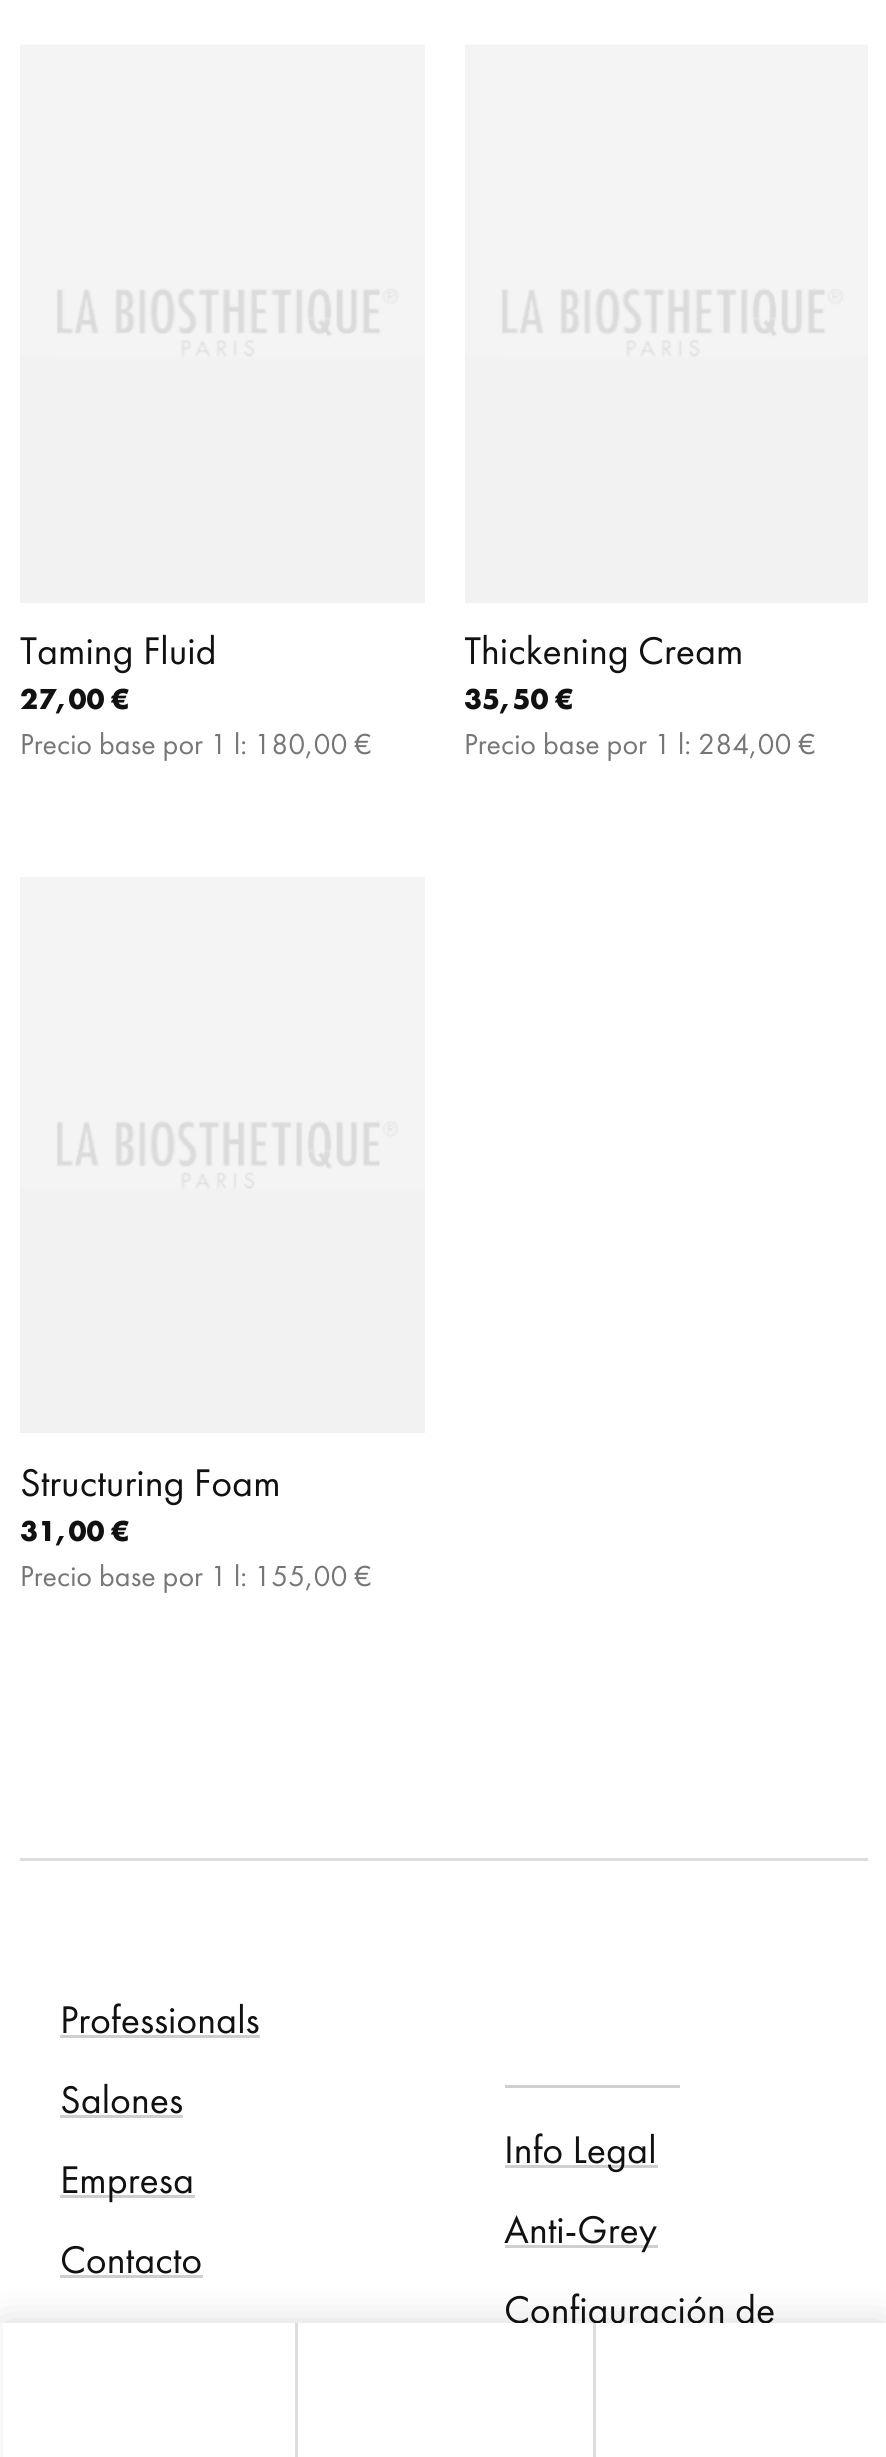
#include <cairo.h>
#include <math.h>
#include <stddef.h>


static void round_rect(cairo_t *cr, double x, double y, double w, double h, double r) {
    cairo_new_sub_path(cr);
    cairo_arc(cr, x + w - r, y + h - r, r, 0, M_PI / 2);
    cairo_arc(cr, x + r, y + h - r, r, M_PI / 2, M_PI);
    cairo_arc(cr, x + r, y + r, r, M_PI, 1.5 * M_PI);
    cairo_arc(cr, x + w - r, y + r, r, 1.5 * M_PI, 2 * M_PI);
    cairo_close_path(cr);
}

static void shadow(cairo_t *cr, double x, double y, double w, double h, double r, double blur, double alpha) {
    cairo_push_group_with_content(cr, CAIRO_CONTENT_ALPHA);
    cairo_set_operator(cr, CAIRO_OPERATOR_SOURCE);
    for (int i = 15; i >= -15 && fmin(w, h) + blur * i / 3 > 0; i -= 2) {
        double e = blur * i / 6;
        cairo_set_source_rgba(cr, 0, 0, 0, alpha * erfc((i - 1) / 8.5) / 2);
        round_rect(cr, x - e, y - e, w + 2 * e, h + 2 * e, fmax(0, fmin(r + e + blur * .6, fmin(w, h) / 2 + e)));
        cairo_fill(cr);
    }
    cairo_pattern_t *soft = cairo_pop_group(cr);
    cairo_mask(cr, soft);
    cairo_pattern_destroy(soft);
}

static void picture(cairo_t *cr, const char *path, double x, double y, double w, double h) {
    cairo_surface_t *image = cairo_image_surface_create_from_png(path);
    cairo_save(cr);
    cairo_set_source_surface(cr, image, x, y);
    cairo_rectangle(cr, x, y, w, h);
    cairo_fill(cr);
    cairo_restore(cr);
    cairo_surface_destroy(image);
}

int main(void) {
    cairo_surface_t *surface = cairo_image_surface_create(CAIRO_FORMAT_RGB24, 886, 2457);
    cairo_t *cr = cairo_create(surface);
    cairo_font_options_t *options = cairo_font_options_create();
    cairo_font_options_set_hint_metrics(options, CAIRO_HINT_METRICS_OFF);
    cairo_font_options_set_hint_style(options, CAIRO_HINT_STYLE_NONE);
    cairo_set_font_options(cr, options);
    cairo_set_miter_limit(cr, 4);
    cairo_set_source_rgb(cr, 1, 1, 1);
    cairo_paint(cr);
    cairo_set_source_rgb(cr, 0.949, 0.949, 0.949);
    cairo_rectangle(cr, 20, 45, 405, 558);
    cairo_fill(cr);
    picture(cr, "img1.png", 20, 44, 405, 311);
    picture(cr, "img2.png", 57, 355, 341, 2);
    cairo_select_font_face(cr, "Futura PT", CAIRO_FONT_SLANT_NORMAL, CAIRO_FONT_WEIGHT_NORMAL);
    cairo_set_font_size(cr, 40);
    cairo_set_source_rgb(cr, 0.067, 0.067, 0.067);
    cairo_move_to(cr, 20, 664);
    cairo_show_text(cr, "Taming Fluid");
    cairo_select_font_face(cr, "Futura PT", CAIRO_FONT_SLANT_NORMAL, CAIRO_FONT_WEIGHT_BOLD);
    cairo_set_font_size(cr, 30);
    cairo_move_to(cr, 20, 709);
    cairo_show_text(cr, "27,00 €");
    cairo_select_font_face(cr, "Futura PT", CAIRO_FONT_SLANT_NORMAL, CAIRO_FONT_WEIGHT_NORMAL);
    cairo_set_source_rgb(cr, 0.463, 0.463, 0.463);
    cairo_move_to(cr, 20, 754);
    cairo_show_text(cr, "Precio base por 1 l: 180,00 €");
    cairo_set_source_rgb(cr, 0.949, 0.949, 0.949);
    cairo_rectangle(cr, 465, 355, 403, 248);
    cairo_fill(cr);
    picture(cr, "img3.png", 465, 44, 403, 311);
    picture(cr, "img2.png", 502, 355, 341, 2);
    cairo_save(cr);
    cairo_rectangle(cr, 465, 628, 403, 140);
    cairo_clip(cr);
    cairo_set_font_size(cr, 40);
    cairo_set_source_rgb(cr, 0.067, 0.067, 0.067);
    cairo_move_to(cr, 464, 664);
    cairo_show_text(cr, "Thickening Cream");
    cairo_restore(cr);
    cairo_select_font_face(cr, "Futura PT", CAIRO_FONT_SLANT_NORMAL, CAIRO_FONT_WEIGHT_BOLD);
    cairo_set_source_rgb(cr, 0.067, 0.067, 0.067);
    cairo_move_to(cr, 464, 709);
    cairo_show_text(cr, "35,50 €");
    cairo_select_font_face(cr, "Futura PT", CAIRO_FONT_SLANT_NORMAL, CAIRO_FONT_WEIGHT_NORMAL);
    cairo_set_source_rgb(cr, 0.463, 0.463, 0.463);
    cairo_move_to(cr, 464, 754);
    cairo_show_text(cr, "Precio base por 1 l: 284,00 €");
    cairo_set_source_rgb(cr, 0.949, 0.949, 0.949);
    cairo_rectangle(cr, 20, 1189, 405, 244);
    cairo_fill(cr);
    picture(cr, "img4.png", 20, 877, 405, 312);
    picture(cr, "img5.png", 84, 1128, 139, 60);
    cairo_set_font_size(cr, 40);
    cairo_set_source_rgb(cr, 0.067, 0.067, 0.067);
    cairo_move_to(cr, 20, 1496);
    cairo_show_text(cr, "Structuring Foam");
    cairo_select_font_face(cr, "Futura PT", CAIRO_FONT_SLANT_NORMAL, CAIRO_FONT_WEIGHT_BOLD);
    cairo_set_font_size(cr, 30);
    cairo_move_to(cr, 20, 1541);
    cairo_show_text(cr, "31,00 €");
    cairo_select_font_face(cr, "Futura PT", CAIRO_FONT_SLANT_NORMAL, CAIRO_FONT_WEIGHT_NORMAL);
    cairo_set_source_rgb(cr, 0.463, 0.463, 0.463);
    cairo_move_to(cr, 20, 1586);
    cairo_show_text(cr, "Precio base por 1 l: 155,00 €");
    cairo_set_source_rgb(cr, 0.867, 0.867, 0.867);
    cairo_rectangle(cr, 20, 1858, 848, 3);
    cairo_fill(cr);
    cairo_set_font_size(cr, 40);
    cairo_set_source_rgb(cr, 0.067, 0.067, 0.067);
    cairo_move_to(cr, 60, 2033);
    cairo_show_text(cr, "Professionals");
    cairo_set_source_rgb(cr, 0.812, 0.812, 0.812);
    cairo_rectangle(cr, 60, 2035, 200, 3);
    cairo_fill(cr);
    cairo_set_source_rgb(cr, 0.067, 0.067, 0.067);
    cairo_move_to(cr, 60, 2113);
    cairo_show_text(cr, "Salones");
    cairo_set_source_rgb(cr, 0.812, 0.812, 0.812);
    cairo_rectangle(cr, 60, 2115, 123, 3);
    cairo_fill(cr);
    cairo_rectangle(cr, 505, 2085, 175, 3);
    cairo_fill(cr);
    cairo_set_source_rgb(cr, 0.067, 0.067, 0.067);
    cairo_move_to(cr, 504, 2163);
    cairo_show_text(cr, "Info Legal");
    cairo_set_source_rgba(cr, 0.067, 0.067, 0.067, 0.2);
    cairo_rectangle(cr, 505, 2165, 153, 3);
    cairo_fill(cr);
    cairo_set_source_rgb(cr, 0.067, 0.067, 0.067);
    cairo_move_to(cr, 60, 2193);
    cairo_show_text(cr, "Empresa");
    cairo_set_source_rgba(cr, 0.067, 0.067, 0.067, 0.2);
    cairo_rectangle(cr, 60, 2195, 135, 3);
    cairo_fill(cr);
    cairo_set_source_rgb(cr, 0.067, 0.067, 0.067);
    cairo_move_to(cr, 504, 2243);
    cairo_show_text(cr, "Anti-Grey");
    cairo_set_source_rgba(cr, 0.067, 0.067, 0.067, 0.2);
    cairo_rectangle(cr, 505, 2245, 153, 3);
    cairo_fill(cr);
    cairo_set_source_rgb(cr, 0.067, 0.067, 0.067);
    cairo_move_to(cr, 60, 2273);
    cairo_show_text(cr, "Contacto");
    cairo_set_source_rgb(cr, 0.812, 0.812, 0.812);
    cairo_rectangle(cr, 60, 2275, 143, 3);
    cairo_fill(cr);
    cairo_set_source_rgb(cr, 0.067, 0.067, 0.067);
    cairo_move_to(cr, 504, 2323);
    cairo_show_text(cr, "Configuración de");
    cairo_set_source_rgb(cr, 0, 0, 0);
    shadow(cr, 5, 2328, 878, 125, 0, 20, 0.2);
    cairo_set_source_rgb(cr, 1, 1, 1);
    cairo_rectangle(cr, 3, 2323, 883, 134);
    cairo_fill(cr);
    cairo_set_source_rgb(cr, 0.969, 0.969, 0.969);
    cairo_rectangle(cr, 0, 2323, 3, 134);
    cairo_fill(cr);
    cairo_set_source_rgb(cr, 0.867, 0.867, 0.867);
    cairo_rectangle(cr, 295, 2323, 3, 134);
    cairo_fill(cr);
    cairo_rectangle(cr, 593, 2323, 3, 134);
    cairo_fill(cr);
    cairo_surface_write_to_png(surface, "page.png");
    cairo_font_options_destroy(options);
    cairo_destroy(cr);
    cairo_surface_destroy(surface);
    return 0;
}
